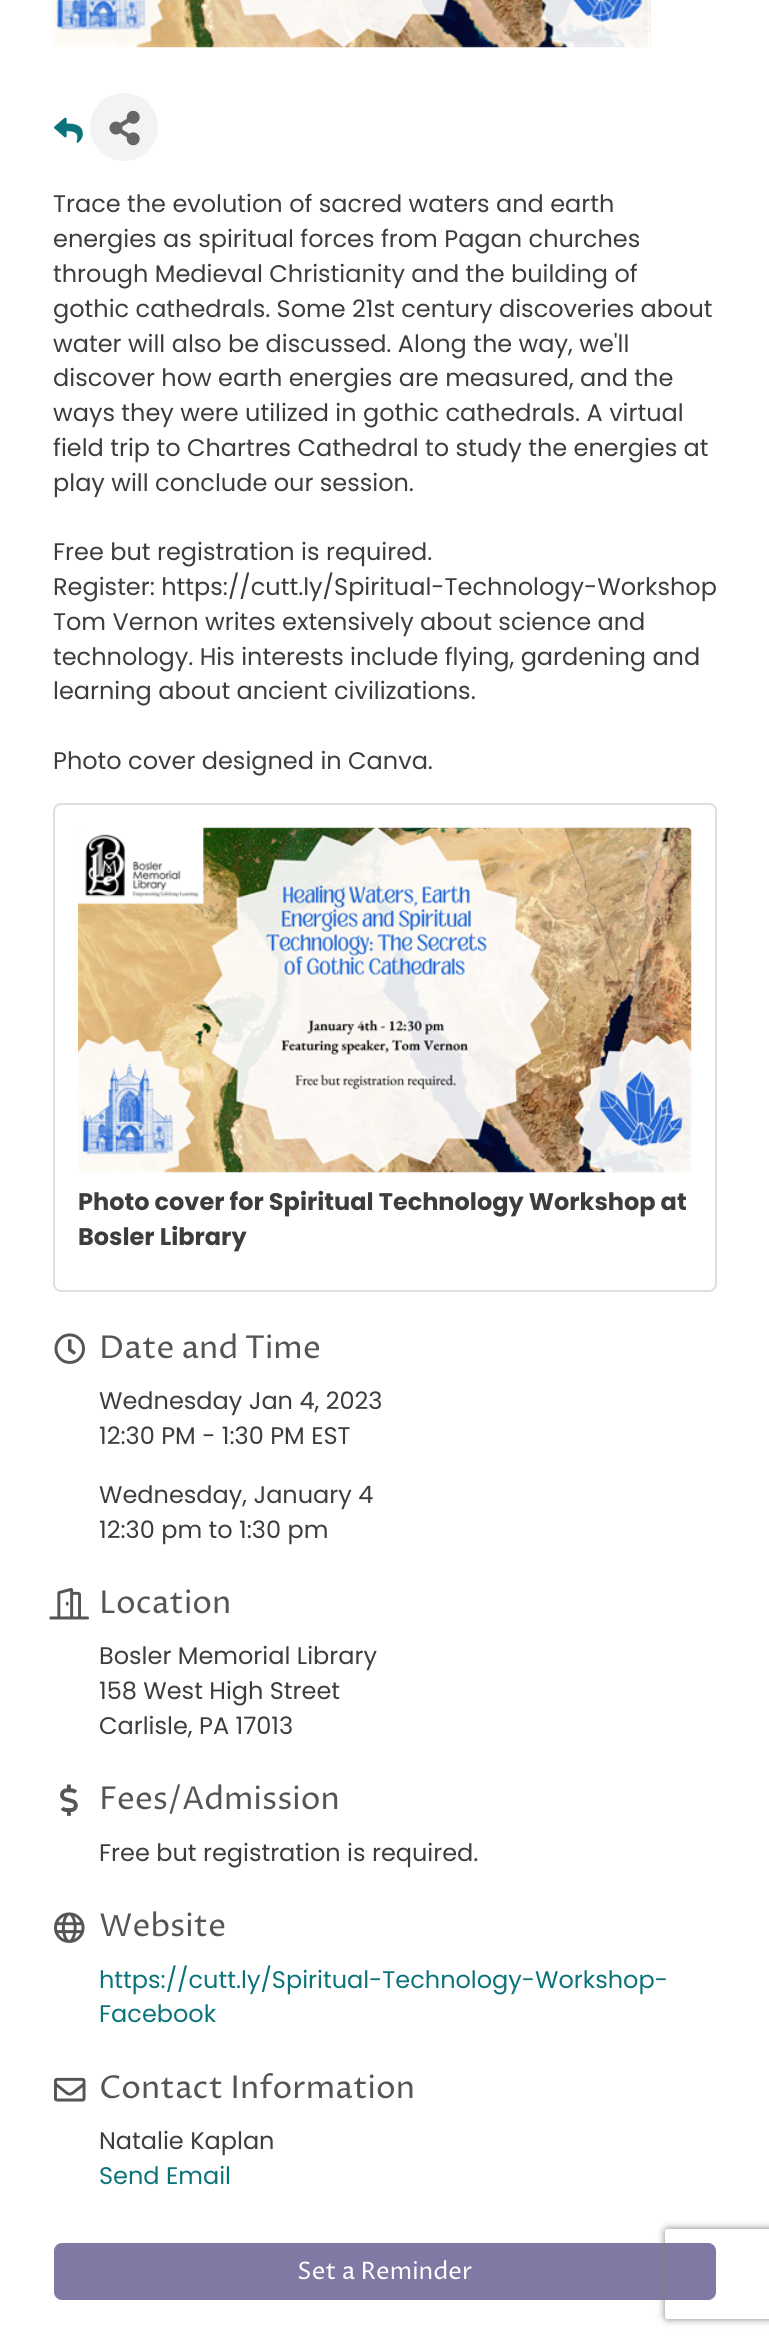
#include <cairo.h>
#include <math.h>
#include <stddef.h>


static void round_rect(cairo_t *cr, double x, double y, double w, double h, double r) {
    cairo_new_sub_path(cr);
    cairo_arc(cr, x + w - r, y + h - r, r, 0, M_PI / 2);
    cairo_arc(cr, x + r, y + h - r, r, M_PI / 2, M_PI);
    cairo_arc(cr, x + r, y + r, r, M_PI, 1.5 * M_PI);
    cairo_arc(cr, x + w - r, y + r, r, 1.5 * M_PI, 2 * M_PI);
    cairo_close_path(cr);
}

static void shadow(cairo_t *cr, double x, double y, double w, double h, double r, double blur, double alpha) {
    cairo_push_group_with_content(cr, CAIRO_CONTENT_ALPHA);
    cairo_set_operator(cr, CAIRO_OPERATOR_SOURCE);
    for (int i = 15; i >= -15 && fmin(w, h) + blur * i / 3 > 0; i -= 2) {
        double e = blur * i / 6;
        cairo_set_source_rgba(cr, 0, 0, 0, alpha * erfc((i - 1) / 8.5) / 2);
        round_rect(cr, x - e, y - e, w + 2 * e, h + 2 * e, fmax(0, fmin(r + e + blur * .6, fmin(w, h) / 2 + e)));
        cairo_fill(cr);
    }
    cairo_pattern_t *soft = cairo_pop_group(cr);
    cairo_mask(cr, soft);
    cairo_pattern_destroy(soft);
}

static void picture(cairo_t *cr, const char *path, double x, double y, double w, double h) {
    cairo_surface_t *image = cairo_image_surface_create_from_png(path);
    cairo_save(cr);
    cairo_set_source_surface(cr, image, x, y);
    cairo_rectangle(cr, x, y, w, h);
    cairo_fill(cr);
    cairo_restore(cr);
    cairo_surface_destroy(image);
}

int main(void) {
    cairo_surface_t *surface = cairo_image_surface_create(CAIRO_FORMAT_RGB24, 769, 2340);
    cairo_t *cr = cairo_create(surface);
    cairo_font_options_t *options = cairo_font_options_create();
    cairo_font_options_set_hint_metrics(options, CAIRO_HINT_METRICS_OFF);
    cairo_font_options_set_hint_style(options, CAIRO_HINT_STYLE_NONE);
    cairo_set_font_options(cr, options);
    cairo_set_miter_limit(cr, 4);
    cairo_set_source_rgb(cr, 1, 1, 1);
    cairo_paint(cr);
    picture(cr, "img1.png", 53, 0, 598, 48);
    picture(cr, "img2.png", 54, 117, 29, 26);
    cairo_set_source_rgb(cr, 0.953, 0.953, 0.953);
    cairo_arc(cr, 124, 127, 34, 0, 2 * M_PI);
    cairo_fill(cr);
    picture(cr, "img3.png", 109, 110, 31, 36);
    cairo_select_font_face(cr, "Poppins", CAIRO_FONT_SLANT_NORMAL, CAIRO_FONT_WEIGHT_NORMAL);
    cairo_set_font_size(cr, 24);
    cairo_set_source_rgb(cr, 0.239, 0.239, 0.239);
    cairo_move_to(cr, 53, 212);
    cairo_show_text(cr, "Trace the evolution of sacred waters and earth");
    cairo_move_to(cr, 53, 247);
    cairo_show_text(cr, "energies as spiritual forces from Pagan churches");
    cairo_move_to(cr, 53, 282);
    cairo_show_text(cr, "through Medieval Christianity and the building of");
    cairo_move_to(cr, 53, 317);
    cairo_show_text(cr, "gothic cathedrals. Some 21st century discoveries about");
    cairo_move_to(cr, 53, 352);
    cairo_show_text(cr, "water will also be discussed. Along the way, we'll");
    cairo_move_to(cr, 53, 386);
    cairo_show_text(cr, "discover how earth energies are measured, and the");
    cairo_move_to(cr, 53, 421);
    cairo_show_text(cr, "ways they were utilized in gothic cathedrals. A virtual");
    cairo_move_to(cr, 53, 456);
    cairo_show_text(cr, "field trip to Chartres Cathedral to study the energies at");
    cairo_move_to(cr, 53, 491);
    cairo_show_text(cr, "play will conclude our session.");
    cairo_move_to(cr, 53, 560);
    cairo_show_text(cr, "Free but registration is required.");
    cairo_move_to(cr, 53, 595);
    cairo_show_text(cr, "Register: https://cutt.ly/Spiritual-Technology-Workshop");
    cairo_move_to(cr, 53, 630);
    cairo_show_text(cr, "Tom Vernon writes extensively about science and");
    cairo_move_to(cr, 53, 665);
    cairo_show_text(cr, "technology. His interests include flying, gardening and");
    cairo_move_to(cr, 53, 699);
    cairo_show_text(cr, "learning about ancient civilizations.");
    cairo_move_to(cr, 53, 769);
    cairo_show_text(cr, "Photo cover designed in Canva.");
    round_rect(cr, 54, 804, 662, 487, 7);
    cairo_set_source_rgb(cr, 0.875, 0.875, 0.875);
    cairo_stroke(cr);
    picture(cr, "img4.png", 78, 827, 614, 346);
    cairo_select_font_face(cr, "Poppins", CAIRO_FONT_SLANT_NORMAL, CAIRO_FONT_WEIGHT_BOLD);
    cairo_set_source_rgb(cr, 0.239, 0.239, 0.239);
    cairo_move_to(cr, 78, 1210);
    cairo_show_text(cr, "Photo cover for Spiritual Technology Workshop at");
    cairo_move_to(cr, 78, 1245);
    cairo_show_text(cr, "Bosler Library");
    picture(cr, "img5.png", 54, 1333, 31, 31);
    cairo_select_font_face(cr, "Proza Libre", CAIRO_FONT_SLANT_NORMAL, CAIRO_FONT_WEIGHT_NORMAL);
    cairo_set_font_size(cr, 31.5);
    cairo_set_source_rgb(cr, 0.333, 0.333, 0.333);
    cairo_move_to(cr, 99, 1358);
    cairo_show_text(cr, "Date and Time");
    cairo_select_font_face(cr, "Poppins", CAIRO_FONT_SLANT_NORMAL, CAIRO_FONT_WEIGHT_NORMAL);
    cairo_set_font_size(cr, 24);
    cairo_set_source_rgb(cr, 0.239, 0.239, 0.239);
    cairo_move_to(cr, 99, 1409);
    cairo_show_text(cr, "Wednesday Jan 4, 2023");
    cairo_move_to(cr, 99, 1444);
    cairo_show_text(cr, "12:30 PM - 1:30 PM EST");
    cairo_move_to(cr, 99, 1503);
    cairo_show_text(cr, "Wednesday, January 4");
    cairo_move_to(cr, 99, 1538);
    cairo_show_text(cr, "12:30 pm to 1:30 pm");
    picture(cr, "img6.png", 49, 1588, 40, 32);
    cairo_select_font_face(cr, "Proza Libre", CAIRO_FONT_SLANT_NORMAL, CAIRO_FONT_WEIGHT_NORMAL);
    cairo_set_font_size(cr, 31.5);
    cairo_set_source_rgb(cr, 0.333, 0.333, 0.333);
    cairo_move_to(cr, 99, 1613);
    cairo_show_text(cr, "Location");
    cairo_select_font_face(cr, "Poppins", CAIRO_FONT_SLANT_NORMAL, CAIRO_FONT_WEIGHT_NORMAL);
    cairo_set_font_size(cr, 24);
    cairo_set_source_rgb(cr, 0.239, 0.239, 0.239);
    cairo_move_to(cr, 99, 1664);
    cairo_show_text(cr, "Bosler Memorial Library");
    cairo_move_to(cr, 99, 1699);
    cairo_show_text(cr, "158 West High Street");
    cairo_move_to(cr, 99, 1734);
    cairo_show_text(cr, "Carlisle, PA 17013");
    picture(cr, "img7.png", 60, 1784, 18, 32);
    cairo_select_font_face(cr, "Proza Libre", CAIRO_FONT_SLANT_NORMAL, CAIRO_FONT_WEIGHT_NORMAL);
    cairo_set_font_size(cr, 31.5);
    cairo_set_source_rgb(cr, 0.333, 0.333, 0.333);
    cairo_move_to(cr, 99, 1809);
    cairo_show_text(cr, "Fees/Admission");
    cairo_select_font_face(cr, "Poppins", CAIRO_FONT_SLANT_NORMAL, CAIRO_FONT_WEIGHT_NORMAL);
    cairo_set_font_size(cr, 24);
    cairo_set_source_rgb(cr, 0.239, 0.239, 0.239);
    cairo_move_to(cr, 99, 1861);
    cairo_show_text(cr, "Free but registration is required.");
    picture(cr, "img8.png", 54, 1912, 31, 31);
    cairo_select_font_face(cr, "Proza Libre", CAIRO_FONT_SLANT_NORMAL, CAIRO_FONT_WEIGHT_NORMAL);
    cairo_set_font_size(cr, 31.5);
    cairo_set_source_rgb(cr, 0.333, 0.333, 0.333);
    cairo_move_to(cr, 99, 1936);
    cairo_show_text(cr, "Website");
    cairo_select_font_face(cr, "Poppins", CAIRO_FONT_SLANT_NORMAL, CAIRO_FONT_WEIGHT_NORMAL);
    cairo_set_font_size(cr, 24);
    cairo_set_source_rgb(cr, 0.047, 0.451, 0.478);
    cairo_move_to(cr, 99, 1988);
    cairo_show_text(cr, "https://cutt.ly/Spiritual-Technology-Workshop-");
    cairo_move_to(cr, 99, 2022);
    cairo_show_text(cr, "Facebook");
    picture(cr, "img9.png", 54, 2077, 32, 25);
    cairo_select_font_face(cr, "Proza Libre", CAIRO_FONT_SLANT_NORMAL, CAIRO_FONT_WEIGHT_NORMAL);
    cairo_set_font_size(cr, 31.5);
    cairo_set_source_rgb(cr, 0.333, 0.333, 0.333);
    cairo_move_to(cr, 99, 2098);
    cairo_show_text(cr, "Contact Information");
    cairo_select_font_face(cr, "Poppins", CAIRO_FONT_SLANT_NORMAL, CAIRO_FONT_WEIGHT_NORMAL);
    cairo_set_font_size(cr, 24);
    cairo_set_source_rgb(cr, 0.239, 0.239, 0.239);
    cairo_move_to(cr, 99, 2149);
    cairo_show_text(cr, "Natalie Kaplan");
    cairo_set_source_rgb(cr, 0.047, 0.451, 0.478);
    cairo_move_to(cr, 99, 2184);
    cairo_show_text(cr, "Send Email");
    cairo_set_source_rgb(cr, 0.498, 0.478, 0.643);
    round_rect(cr, 55, 2244, 660, 55, 7);
    cairo_fill_preserve(cr);
    cairo_stroke(cr);
    cairo_select_font_face(cr, "Proza Libre", CAIRO_FONT_SLANT_NORMAL, CAIRO_FONT_WEIGHT_NORMAL);
    cairo_set_source_rgb(cr, 1, 1, 1);
    cairo_move_to(cr, 297, 2279);
    cairo_show_text(cr, "Set a Reminder");
    cairo_save(cr);
    cairo_set_fill_rule(cr, CAIRO_FILL_RULE_EVEN_ODD);
    cairo_new_path(cr);
    cairo_move_to(cr, 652, 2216);
    cairo_line_to(cr, 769, 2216);
    cairo_line_to(cr, 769, 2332);
    cairo_line_to(cr, 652, 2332);
    cairo_close_path(cr);
    cairo_move_to(cr, 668, 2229);
    cairo_line_to(cr, 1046, 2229);
    cairo_curve_to(cr, 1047.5, 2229, 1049, 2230.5, 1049, 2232);
    cairo_line_to(cr, 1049, 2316);
    cairo_curve_to(cr, 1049, 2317.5, 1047.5, 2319, 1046, 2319);
    cairo_line_to(cr, 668, 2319);
    cairo_curve_to(cr, 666.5, 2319, 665, 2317.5, 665, 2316);
    cairo_line_to(cr, 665, 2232);
    cairo_curve_to(cr, 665, 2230.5, 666.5, 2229, 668, 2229);
    cairo_close_path(cr);
    cairo_clip(cr);
    cairo_set_source_rgb(cr, 0.502, 0.502, 0.502);
    shadow(cr, 665, 2229, 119, 90, 3, 4, 1);
    cairo_restore(cr);
    cairo_surface_write_to_png(surface, "page.png");
    cairo_font_options_destroy(options);
    cairo_destroy(cr);
    cairo_surface_destroy(surface);
    return 0;
}
